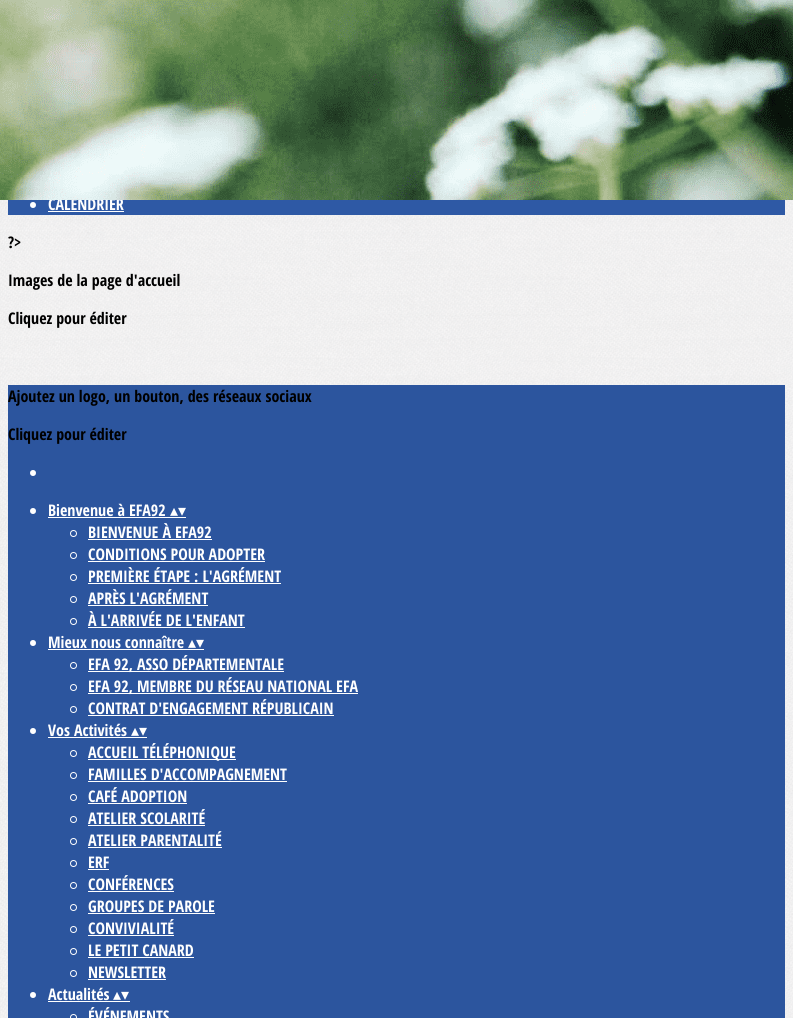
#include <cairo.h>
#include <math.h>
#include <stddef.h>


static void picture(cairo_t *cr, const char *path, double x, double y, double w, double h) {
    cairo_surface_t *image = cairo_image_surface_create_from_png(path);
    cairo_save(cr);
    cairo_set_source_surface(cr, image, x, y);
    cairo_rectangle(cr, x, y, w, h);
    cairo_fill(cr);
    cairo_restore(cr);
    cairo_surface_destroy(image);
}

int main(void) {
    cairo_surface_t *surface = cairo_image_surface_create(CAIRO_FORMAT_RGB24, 793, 1018);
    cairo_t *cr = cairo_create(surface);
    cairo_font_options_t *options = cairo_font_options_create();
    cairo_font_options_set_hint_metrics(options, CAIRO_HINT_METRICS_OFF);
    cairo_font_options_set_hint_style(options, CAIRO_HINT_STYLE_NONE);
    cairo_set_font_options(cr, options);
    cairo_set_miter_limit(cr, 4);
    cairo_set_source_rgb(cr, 0.98, 0.976, 0.973);
    cairo_paint(cr);
    picture(cr, "img1.png", 0, 200, 793, 818);
    cairo_set_source_rgb(cr, 0.18, 0.349, 0.647);
    cairo_rectangle(cr, 8, 200, 777, 15);
    cairo_fill(cr);
    cairo_set_source_rgb(cr, 1, 1, 1);
    cairo_arc(cr, 33, 205, 3, 0, 2 * M_PI);
    cairo_fill(cr);
    cairo_select_font_face(cr, "Open Sans Condensed", CAIRO_FONT_SLANT_NORMAL, CAIRO_FONT_WEIGHT_BOLD);
    cairo_set_font_size(cr, 16);
    cairo_move_to(cr, 48, 210);
    cairo_show_text(cr, "CALENDRIER");
    cairo_rectangle(cr, 48, 211, 76, 1);
    cairo_fill(cr);
    cairo_set_source_rgb(cr, 0, 0, 0);
    cairo_move_to(cr, 8, 248);
    cairo_show_text(cr, "?>");
    picture(cr, "img2.png", 0, 0, 793, 200);
    cairo_move_to(cr, 8, 286);
    cairo_show_text(cr, "Images de la page d'accueil");
    cairo_move_to(cr, 8, 324);
    cairo_show_text(cr, "Cliquez pour éditer");
    cairo_set_source_rgb(cr, 0.173, 0.333, 0.62);
    cairo_rectangle(cr, 8, 385, 777, 633);
    cairo_fill(cr);
    cairo_set_source_rgb(cr, 0, 0, 0);
    cairo_move_to(cr, 8, 402);
    cairo_show_text(cr, "Ajoutez un logo, un bouton, des réseaux sociaux");
    cairo_move_to(cr, 8, 440);
    cairo_show_text(cr, "Cliquez pour éditer");
    cairo_set_source_rgb(cr, 1, 1, 1);
    cairo_new_path(cr);
    cairo_arc(cr, 33, 473, 3, 0, 2 * M_PI);
    cairo_fill(cr);
    cairo_arc(cr, 33, 511, 3, 0, 2 * M_PI);
    cairo_fill(cr);
    cairo_move_to(cr, 48, 516);
    cairo_show_text(cr, "Bienvenue à EFA92");
    cairo_rectangle(cr, 48, 517, 138, 1);
    cairo_fill(cr);
    cairo_select_font_face(cr, "DejaVu Sans", CAIRO_FONT_SLANT_NORMAL, CAIRO_FONT_WEIGHT_NORMAL);
    cairo_move_to(cr, 170, 516);
    cairo_show_text(cr, "▴▾");
    cairo_new_path(cr);
    cairo_arc(cr, 73.5, 533.5, 3, 0, 2 * M_PI);
    cairo_set_line_width(cr, 1);
    cairo_stroke(cr);
    cairo_select_font_face(cr, "Open Sans Condensed", CAIRO_FONT_SLANT_NORMAL, CAIRO_FONT_WEIGHT_BOLD);
    cairo_move_to(cr, 88, 538);
    cairo_show_text(cr, "BIENVENUE À EFA92");
    cairo_rectangle(cr, 88, 539, 124, 1);
    cairo_fill(cr);
    cairo_arc(cr, 73.5, 555.5, 3, 0, 2 * M_PI);
    cairo_stroke(cr);
    cairo_move_to(cr, 88, 560);
    cairo_show_text(cr, "CONDITIONS POUR ADOPTER");
    cairo_rectangle(cr, 88, 561, 177, 1);
    cairo_fill(cr);
    cairo_arc(cr, 73.5, 577.5, 3, 0, 2 * M_PI);
    cairo_stroke(cr);
    cairo_move_to(cr, 88, 582);
    cairo_show_text(cr, "PREMIÈRE ÉTAPE : L'AGRÉMENT");
    cairo_rectangle(cr, 88, 583, 193, 1);
    cairo_fill(cr);
    cairo_arc(cr, 73.5, 599.5, 3, 0, 2 * M_PI);
    cairo_stroke(cr);
    cairo_move_to(cr, 88, 604);
    cairo_show_text(cr, "APRÈS L'AGRÉMENT");
    cairo_rectangle(cr, 88, 605, 120, 1);
    cairo_fill(cr);
    cairo_arc(cr, 73.5, 621.5, 3, 0, 2 * M_PI);
    cairo_stroke(cr);
    cairo_move_to(cr, 88, 626);
    cairo_show_text(cr, "À L'ARRIVÉE DE L'ENFANT");
    cairo_rectangle(cr, 88, 627, 157, 1);
    cairo_fill(cr);
    cairo_arc(cr, 33, 643, 3, 0, 2 * M_PI);
    cairo_fill(cr);
    cairo_move_to(cr, 48, 648);
    cairo_show_text(cr, "Mieux nous connaître");
    cairo_rectangle(cr, 48, 649, 156, 1);
    cairo_fill(cr);
    cairo_select_font_face(cr, "DejaVu Sans", CAIRO_FONT_SLANT_NORMAL, CAIRO_FONT_WEIGHT_NORMAL);
    cairo_move_to(cr, 188, 648);
    cairo_show_text(cr, "▴▾");
    cairo_new_path(cr);
    cairo_arc(cr, 73.5, 665.5, 3, 0, 2 * M_PI);
    cairo_stroke(cr);
    cairo_rectangle(cr, 88, 671, 196, 1);
    cairo_fill(cr);
    cairo_select_font_face(cr, "Open Sans Condensed", CAIRO_FONT_SLANT_NORMAL, CAIRO_FONT_WEIGHT_BOLD);
    cairo_move_to(cr, 88, 670);
    cairo_show_text(cr, "EFA 92, ASSO DÉPARTEMENTALE");
    cairo_new_path(cr);
    cairo_arc(cr, 73.5, 687.5, 3, 0, 2 * M_PI);
    cairo_stroke(cr);
    cairo_rectangle(cr, 88, 693, 270, 1);
    cairo_fill(cr);
    cairo_move_to(cr, 88, 692);
    cairo_show_text(cr, "EFA 92, MEMBRE DU RÉSEAU NATIONAL EFA");
    cairo_new_path(cr);
    cairo_arc(cr, 73.5, 709.5, 3, 0, 2 * M_PI);
    cairo_stroke(cr);
    cairo_move_to(cr, 88, 714);
    cairo_show_text(cr, "CONTRAT D'ENGAGEMENT RÉPUBLICAIN");
    cairo_rectangle(cr, 88, 715, 246, 1);
    cairo_fill(cr);
    cairo_arc(cr, 33, 731, 3, 0, 2 * M_PI);
    cairo_fill(cr);
    cairo_move_to(cr, 48, 736);
    cairo_show_text(cr, "Vos Activités");
    cairo_rectangle(cr, 48, 737, 99, 1);
    cairo_fill(cr);
    cairo_select_font_face(cr, "DejaVu Sans", CAIRO_FONT_SLANT_NORMAL, CAIRO_FONT_WEIGHT_NORMAL);
    cairo_move_to(cr, 131, 736);
    cairo_show_text(cr, "▴▾");
    cairo_new_path(cr);
    cairo_arc(cr, 73.5, 753.5, 3, 0, 2 * M_PI);
    cairo_stroke(cr);
    cairo_rectangle(cr, 88, 759, 148, 1);
    cairo_fill(cr);
    cairo_select_font_face(cr, "Open Sans Condensed", CAIRO_FONT_SLANT_NORMAL, CAIRO_FONT_WEIGHT_BOLD);
    cairo_move_to(cr, 88, 758);
    cairo_show_text(cr, "ACCUEIL TÉLÉPHONIQUE");
    cairo_new_path(cr);
    cairo_arc(cr, 73.5, 775.5, 3, 0, 2 * M_PI);
    cairo_stroke(cr);
    cairo_move_to(cr, 88, 780);
    cairo_show_text(cr, "FAMILLES D'ACCOMPAGNEMENT");
    cairo_rectangle(cr, 88, 781, 199, 1);
    cairo_fill(cr);
    cairo_arc(cr, 73.5, 797.5, 3, 0, 2 * M_PI);
    cairo_stroke(cr);
    cairo_move_to(cr, 88, 802);
    cairo_show_text(cr, "CAFÉ ADOPTION");
    cairo_rectangle(cr, 88, 803, 99, 1);
    cairo_fill(cr);
    cairo_arc(cr, 73.5, 819.5, 3, 0, 2 * M_PI);
    cairo_stroke(cr);
    cairo_move_to(cr, 88, 824);
    cairo_show_text(cr, "ATELIER SCOLARITÉ");
    cairo_rectangle(cr, 88, 825, 117, 1);
    cairo_fill(cr);
    cairo_arc(cr, 73.5, 841.5, 3, 0, 2 * M_PI);
    cairo_stroke(cr);
    cairo_move_to(cr, 88, 846);
    cairo_show_text(cr, "ATELIER PARENTALITÉ");
    cairo_rectangle(cr, 88, 847, 134, 1);
    cairo_fill(cr);
    cairo_arc(cr, 73.5, 863.5, 3, 0, 2 * M_PI);
    cairo_stroke(cr);
    cairo_move_to(cr, 88, 868);
    cairo_show_text(cr, "ERF");
    cairo_rectangle(cr, 88, 869, 21, 1);
    cairo_fill(cr);
    cairo_arc(cr, 73.5, 885.5, 3, 0, 2 * M_PI);
    cairo_stroke(cr);
    cairo_move_to(cr, 88, 890);
    cairo_show_text(cr, "CONFÉRENCES");
    cairo_rectangle(cr, 88, 891, 86, 1);
    cairo_fill(cr);
    cairo_arc(cr, 73.5, 907.5, 3, 0, 2 * M_PI);
    cairo_stroke(cr);
    cairo_move_to(cr, 88, 912);
    cairo_show_text(cr, "GROUPES DE PAROLE");
    cairo_rectangle(cr, 88, 913, 127, 1);
    cairo_fill(cr);
    cairo_arc(cr, 73.5, 929.5, 3, 0, 2 * M_PI);
    cairo_stroke(cr);
    cairo_move_to(cr, 88, 934);
    cairo_show_text(cr, "CONVIVIALITÉ");
    cairo_rectangle(cr, 88, 935, 86, 1);
    cairo_fill(cr);
    cairo_arc(cr, 73.5, 951.5, 3, 0, 2 * M_PI);
    cairo_stroke(cr);
    cairo_move_to(cr, 88, 956);
    cairo_show_text(cr, "LE PETIT CANARD");
    cairo_rectangle(cr, 88, 957, 106, 1);
    cairo_fill(cr);
    cairo_arc(cr, 73.5, 973.5, 3, 0, 2 * M_PI);
    cairo_stroke(cr);
    cairo_move_to(cr, 88, 978);
    cairo_show_text(cr, "NEWSLETTER");
    cairo_rectangle(cr, 88, 979, 78, 1);
    cairo_fill(cr);
    cairo_arc(cr, 33, 995, 3, 0, 2 * M_PI);
    cairo_fill(cr);
    cairo_move_to(cr, 48, 1000);
    cairo_show_text(cr, "Actualités");
    cairo_rectangle(cr, 48, 1001, 82, 1);
    cairo_fill(cr);
    cairo_select_font_face(cr, "DejaVu Sans", CAIRO_FONT_SLANT_NORMAL, CAIRO_FONT_WEIGHT_NORMAL);
    cairo_move_to(cr, 113, 1000);
    cairo_show_text(cr, "▴▾");
    cairo_new_path(cr);
    cairo_arc(cr, 73.5, 1017.5, 3, 0, 2 * M_PI);
    cairo_stroke(cr);
    cairo_select_font_face(cr, "Open Sans Condensed", CAIRO_FONT_SLANT_NORMAL, CAIRO_FONT_WEIGHT_BOLD);
    cairo_move_to(cr, 88, 1022);
    cairo_show_text(cr, "ÉVÉNEMENTS");
    cairo_surface_write_to_png(surface, "page.png");
    cairo_font_options_destroy(options);
    cairo_destroy(cr);
    cairo_surface_destroy(surface);
    return 0;
}
